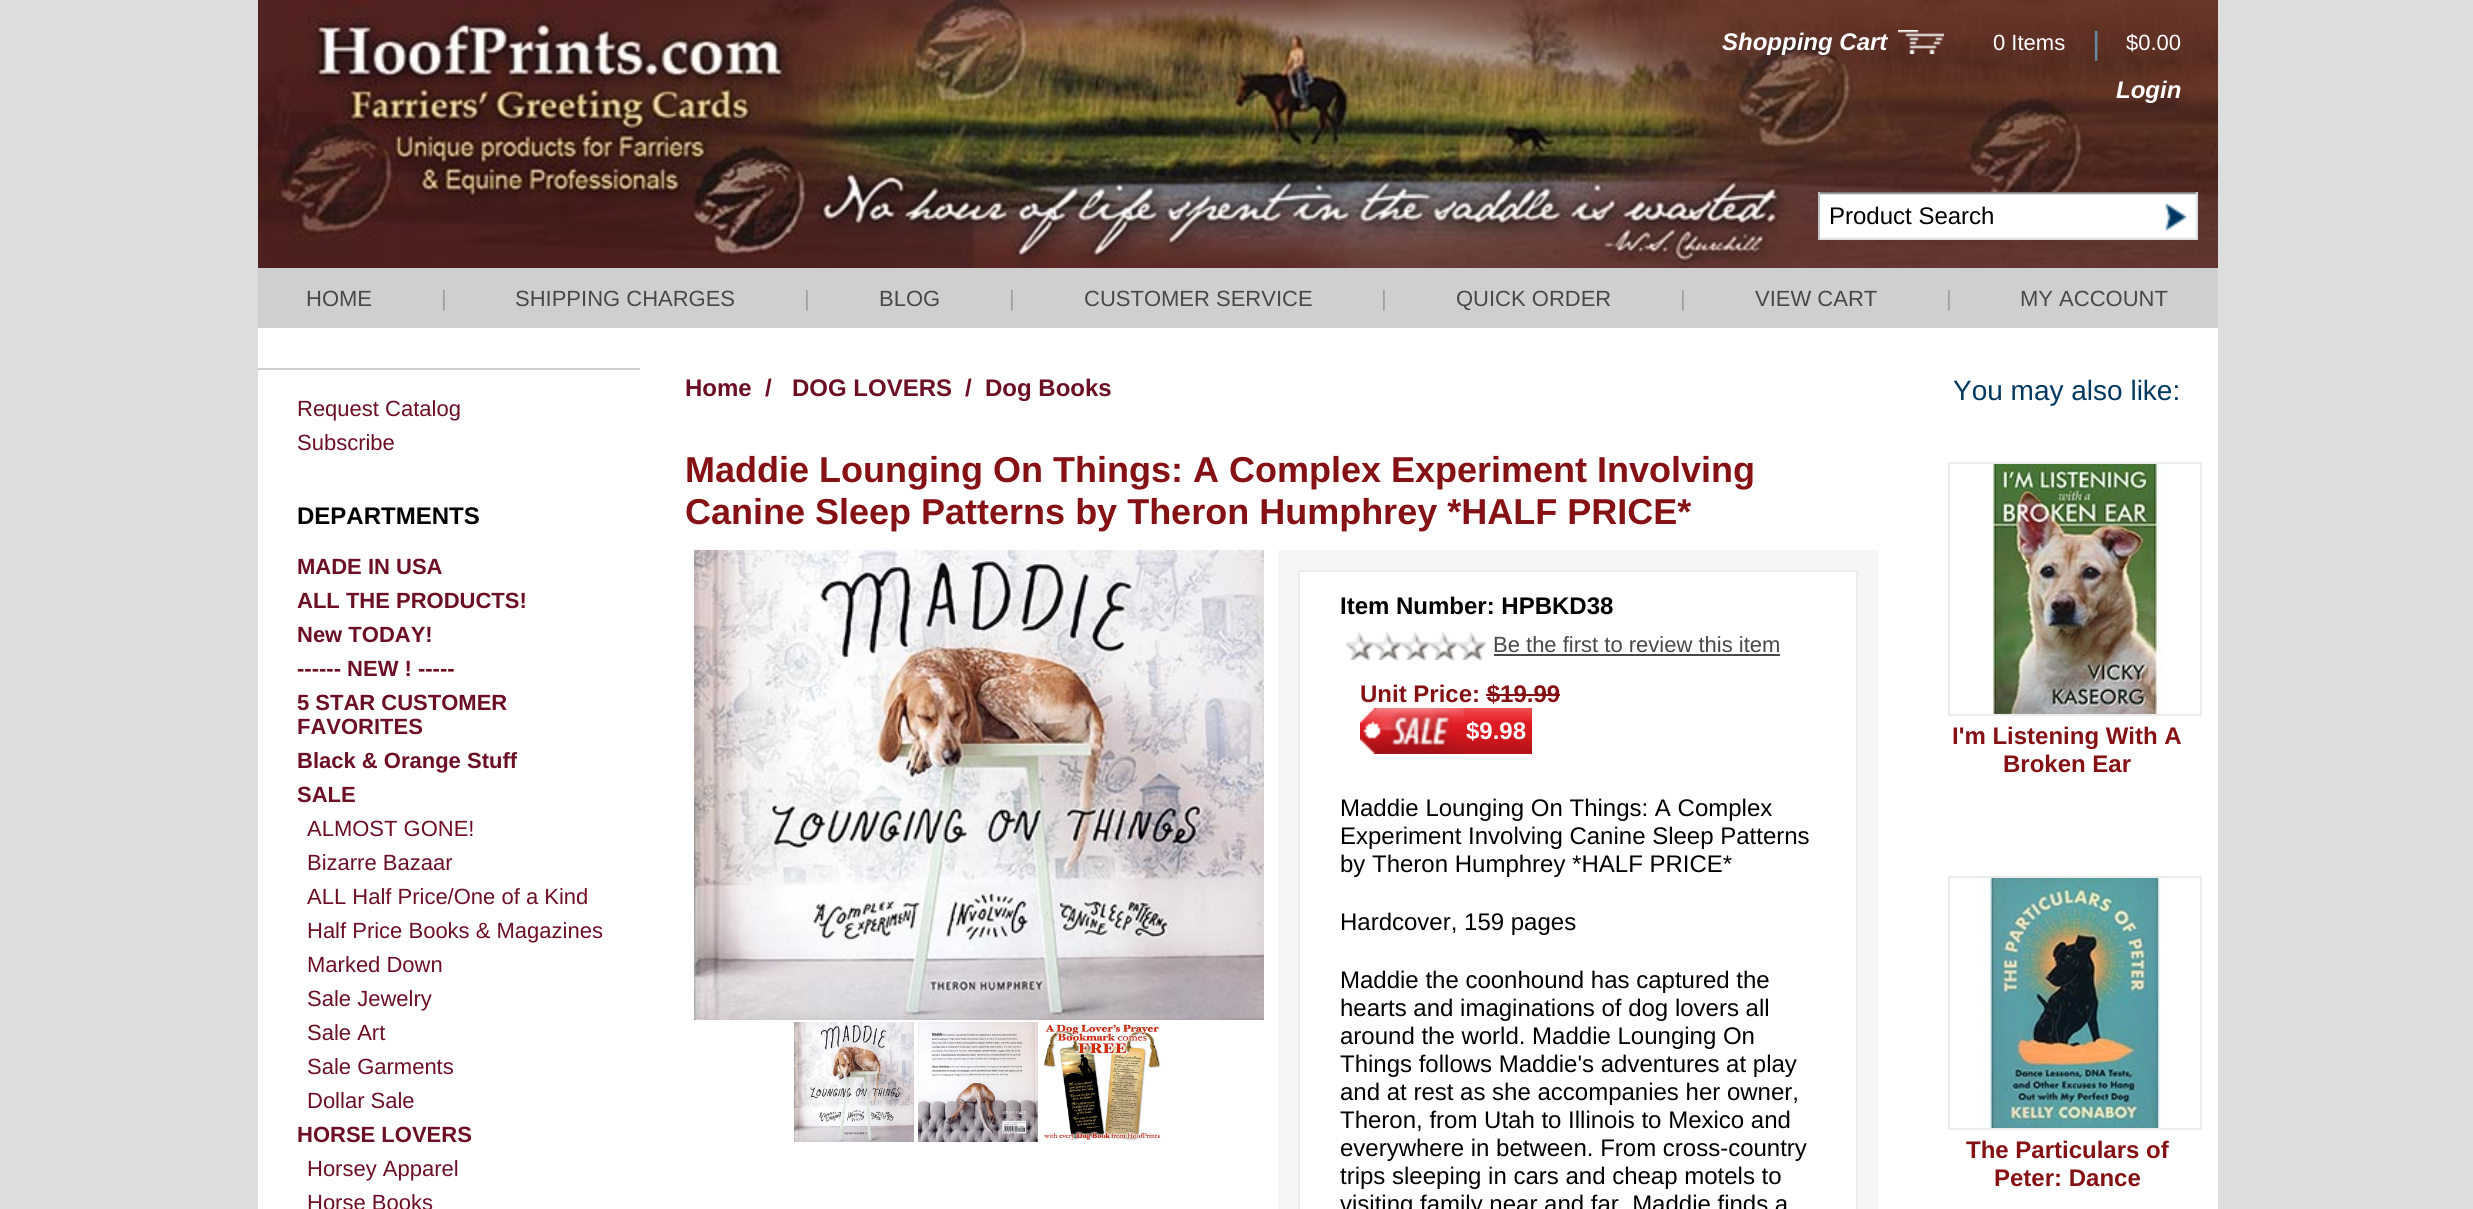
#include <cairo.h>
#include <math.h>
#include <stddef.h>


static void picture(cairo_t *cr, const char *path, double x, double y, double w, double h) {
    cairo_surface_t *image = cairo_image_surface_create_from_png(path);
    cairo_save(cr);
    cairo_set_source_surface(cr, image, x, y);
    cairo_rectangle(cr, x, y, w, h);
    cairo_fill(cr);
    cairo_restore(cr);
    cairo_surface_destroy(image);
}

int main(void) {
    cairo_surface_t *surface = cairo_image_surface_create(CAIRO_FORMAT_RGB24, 2473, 1209);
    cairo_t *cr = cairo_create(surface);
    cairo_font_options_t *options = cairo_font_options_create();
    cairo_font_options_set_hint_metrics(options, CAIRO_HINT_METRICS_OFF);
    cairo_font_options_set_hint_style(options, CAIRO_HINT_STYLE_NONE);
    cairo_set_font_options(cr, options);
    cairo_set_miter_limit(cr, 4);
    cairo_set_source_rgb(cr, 0.867, 0.867, 0.867);
    cairo_paint(cr);
    picture(cr, "img1.png", 258, 0, 1960, 268);
    cairo_select_font_face(cr, "Liberation Sans", CAIRO_FONT_SLANT_ITALIC, CAIRO_FONT_WEIGHT_BOLD);
    cairo_set_font_size(cr, 24);
    cairo_set_source_rgb(cr, 1, 1, 1);
    cairo_move_to(cr, 1722, 50);
    cairo_show_text(cr, "Shopping Cart");
    picture(cr, "img2.png", 1898, 30, 46, 24);
    cairo_select_font_face(cr, "Liberation Sans", CAIRO_FONT_SLANT_NORMAL, CAIRO_FONT_WEIGHT_NORMAL);
    cairo_set_font_size(cr, 22);
    cairo_move_to(cr, 1993, 50);
    cairo_show_text(cr, "0 Items");
    cairo_set_font_size(cr, 32);
    cairo_set_source_rgb(cr, 0.4, 0.533, 0.627);
    cairo_move_to(cr, 2092, 54);
    cairo_show_text(cr, "|");
    cairo_set_font_size(cr, 22);
    cairo_set_source_rgb(cr, 1, 1, 1);
    cairo_move_to(cr, 2126, 50);
    cairo_show_text(cr, "$0.00");
    cairo_select_font_face(cr, "Liberation Sans", CAIRO_FONT_SLANT_ITALIC, CAIRO_FONT_WEIGHT_BOLD);
    cairo_set_font_size(cr, 24);
    cairo_move_to(cr, 2116, 98);
    cairo_show_text(cr, "Login");
    picture(cr, "img3.png", 1820, 192, 378, 48);
    cairo_set_source_rgb(cr, 0.761, 0.761, 0.761);
    cairo_rectangle(cr, 1818, 192, 2, 48);
    cairo_fill(cr);
    cairo_select_font_face(cr, "Liberation Sans", CAIRO_FONT_SLANT_NORMAL, CAIRO_FONT_WEIGHT_NORMAL);
    cairo_set_source_rgb(cr, 0, 0, 0);
    cairo_move_to(cr, 1829, 224);
    cairo_show_text(cr, "Product Search");
    picture(cr, "img4.png", 2165, 192, 33, 47);
    cairo_set_source_rgb(cr, 0.812, 0.812, 0.812);
    cairo_rectangle(cr, 258, 268, 1960, 60);
    cairo_fill(cr);
    cairo_set_font_size(cr, 22);
    cairo_set_source_rgb(cr, 0.282, 0.282, 0.282);
    cairo_move_to(cr, 306, 306);
    cairo_show_text(cr, "HOME");
    cairo_set_source_rgb(cr, 0.624, 0.624, 0.624);
    cairo_move_to(cr, 441, 306);
    cairo_show_text(cr, "|");
    cairo_set_source_rgb(cr, 0.282, 0.282, 0.282);
    cairo_move_to(cr, 515, 306);
    cairo_show_text(cr, "SHIPPING CHARGES");
    cairo_set_source_rgb(cr, 0.624, 0.624, 0.624);
    cairo_move_to(cr, 804, 306);
    cairo_show_text(cr, "|");
    cairo_set_source_rgb(cr, 0.282, 0.282, 0.282);
    cairo_move_to(cr, 879, 306);
    cairo_show_text(cr, "BLOG");
    cairo_set_source_rgb(cr, 0.624, 0.624, 0.624);
    cairo_move_to(cr, 1009, 306);
    cairo_show_text(cr, "|");
    cairo_set_source_rgb(cr, 0.282, 0.282, 0.282);
    cairo_move_to(cr, 1084, 306);
    cairo_show_text(cr, "CUSTOMER SERVICE");
    cairo_set_source_rgb(cr, 0.624, 0.624, 0.624);
    cairo_move_to(cr, 1381, 306);
    cairo_show_text(cr, "|");
    cairo_set_source_rgb(cr, 0.282, 0.282, 0.282);
    cairo_move_to(cr, 1456, 306);
    cairo_show_text(cr, "QUICK ORDER");
    cairo_set_source_rgb(cr, 0.624, 0.624, 0.624);
    cairo_move_to(cr, 1680, 306);
    cairo_show_text(cr, "|");
    cairo_set_source_rgb(cr, 0.282, 0.282, 0.282);
    cairo_move_to(cr, 1755, 306);
    cairo_show_text(cr, "VIEW CART");
    cairo_set_source_rgb(cr, 0.624, 0.624, 0.624);
    cairo_move_to(cr, 1946, 306);
    cairo_show_text(cr, "|");
    cairo_set_source_rgb(cr, 0.282, 0.282, 0.282);
    cairo_move_to(cr, 2020, 306);
    cairo_show_text(cr, "MY ACCOUNT");
    cairo_set_source_rgb(cr, 1, 1, 1);
    cairo_rectangle(cr, 258, 328, 1960, 881);
    cairo_fill(cr);
    cairo_set_source_rgb(cr, 0.812, 0.812, 0.812);
    cairo_rectangle(cr, 258, 368, 382, 2);
    cairo_fill(cr);
    cairo_set_source_rgb(cr, 0.424, 0.055, 0.141);
    cairo_move_to(cr, 297, 416);
    cairo_show_text(cr, "Request Catalog");
    cairo_move_to(cr, 297, 450);
    cairo_show_text(cr, "Subscribe");
    cairo_select_font_face(cr, "Liberation Sans", CAIRO_FONT_SLANT_NORMAL, CAIRO_FONT_WEIGHT_BOLD);
    cairo_set_font_size(cr, 24);
    cairo_set_source_rgb(cr, 0, 0, 0);
    cairo_move_to(cr, 297, 524);
    cairo_show_text(cr, "DEPARTMENTS");
    cairo_set_font_size(cr, 22);
    cairo_set_source_rgb(cr, 0.424, 0.055, 0.141);
    cairo_move_to(cr, 297, 574);
    cairo_show_text(cr, "MADE IN USA");
    cairo_move_to(cr, 297, 608);
    cairo_show_text(cr, "ALL THE PRODUCTS!");
    cairo_move_to(cr, 297, 642);
    cairo_show_text(cr, "New TODAY!");
    cairo_move_to(cr, 297, 676);
    cairo_show_text(cr, "------ NEW ! -----");
    cairo_move_to(cr, 297, 710);
    cairo_show_text(cr, "5 STAR CUSTOMER");
    cairo_move_to(cr, 297, 734);
    cairo_show_text(cr, "FAVORITES");
    cairo_move_to(cr, 297, 768);
    cairo_show_text(cr, "Black & Orange Stuff");
    cairo_move_to(cr, 297, 802);
    cairo_show_text(cr, "SALE");
    cairo_select_font_face(cr, "Liberation Sans", CAIRO_FONT_SLANT_NORMAL, CAIRO_FONT_WEIGHT_NORMAL);
    cairo_move_to(cr, 307, 836);
    cairo_show_text(cr, "ALMOST GONE!");
    cairo_move_to(cr, 307, 870);
    cairo_show_text(cr, "Bizarre Bazaar");
    cairo_move_to(cr, 307, 904);
    cairo_show_text(cr, "ALL Half Price/One of a Kind");
    cairo_move_to(cr, 307, 938);
    cairo_show_text(cr, "Half Price Books & Magazines");
    cairo_move_to(cr, 307, 972);
    cairo_show_text(cr, "Marked Down");
    cairo_move_to(cr, 307, 1006);
    cairo_show_text(cr, "Sale Jewelry");
    cairo_move_to(cr, 307, 1040);
    cairo_show_text(cr, "Sale Art");
    cairo_move_to(cr, 307, 1074);
    cairo_show_text(cr, "Sale Garments");
    cairo_move_to(cr, 307, 1108);
    cairo_show_text(cr, "Dollar Sale");
    cairo_select_font_face(cr, "Liberation Sans", CAIRO_FONT_SLANT_NORMAL, CAIRO_FONT_WEIGHT_BOLD);
    cairo_move_to(cr, 297, 1142);
    cairo_show_text(cr, "HORSE LOVERS");
    cairo_select_font_face(cr, "Liberation Sans", CAIRO_FONT_SLANT_NORMAL, CAIRO_FONT_WEIGHT_NORMAL);
    cairo_move_to(cr, 307, 1176);
    cairo_show_text(cr, "Horsey Apparel");
    cairo_move_to(cr, 307, 1210);
    cairo_show_text(cr, "Horse Books");
    cairo_select_font_face(cr, "Liberation Sans", CAIRO_FONT_SLANT_NORMAL, CAIRO_FONT_WEIGHT_BOLD);
    cairo_set_font_size(cr, 24);
    cairo_move_to(cr, 685, 396);
    cairo_show_text(cr, "Home");
    cairo_move_to(cr, 765, 396);
    cairo_show_text(cr, "/");
    cairo_move_to(cr, 792, 396);
    cairo_show_text(cr, "DOG LOVERS");
    cairo_move_to(cr, 965, 396);
    cairo_show_text(cr, "/");
    cairo_move_to(cr, 985, 396);
    cairo_show_text(cr, "Dog Books");
    cairo_set_font_size(cr, 36);
    cairo_set_source_rgb(cr, 0.525, 0.067, 0.082);
    cairo_move_to(cr, 685, 482);
    cairo_show_text(cr, "Maddie Lounging On Things: A Complex Experiment Involving");
    cairo_move_to(cr, 685, 524);
    cairo_show_text(cr, "Canine Sleep Patterns by Theron Humphrey *HALF PRICE*");
    picture(cr, "img5.png", 694, 550, 570, 470);
    picture(cr, "img6.png", 794, 1022, 120, 120);
    picture(cr, "img7.png", 918, 1022, 120, 120);
    picture(cr, "img8.png", 1042, 1022, 120, 119);
    cairo_set_source_rgb(cr, 0.961, 0.961, 0.961);
    cairo_rectangle(cr, 1278, 550, 600, 659);
    cairo_fill(cr);
    cairo_set_source_rgb(cr, 1, 1, 1);
    cairo_rectangle(cr, 1299, 571, 558, 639);
    cairo_fill_preserve(cr);
    cairo_set_source_rgb(cr, 0.922, 0.922, 0.922);
    cairo_stroke(cr);
    cairo_set_font_size(cr, 24);
    cairo_set_source_rgb(cr, 0, 0, 0);
    cairo_move_to(cr, 1340, 614);
    cairo_show_text(cr, "Item Number: HPBKD38");
    picture(cr, "img9.png", 1346, 632, 140, 28);
    cairo_select_font_face(cr, "Liberation Sans", CAIRO_FONT_SLANT_NORMAL, CAIRO_FONT_WEIGHT_NORMAL);
    cairo_set_font_size(cr, 22);
    cairo_set_source_rgb(cr, 0.282, 0.282, 0.282);
    cairo_move_to(cr, 1493, 652);
    cairo_show_text(cr, "Be the first to review this item");
    cairo_rectangle(cr, 1494, 654, 286, 2);
    cairo_fill(cr);
    cairo_select_font_face(cr, "Liberation Sans", CAIRO_FONT_SLANT_NORMAL, CAIRO_FONT_WEIGHT_BOLD);
    cairo_set_font_size(cr, 24);
    cairo_set_source_rgb(cr, 0.525, 0.067, 0.082);
    cairo_move_to(cr, 1360, 702);
    cairo_show_text(cr, "Unit Price: $19.99");
    cairo_rectangle(cr, 1486, 694, 74, 2);
    cairo_fill(cr);
    picture(cr, "img10.png", 1360, 708, 106, 46);
    picture(cr, "img11.png", 1466, 708, 66, 46);
    cairo_set_source_rgb(cr, 1, 1, 1);
    cairo_move_to(cr, 1466, 739);
    cairo_show_text(cr, "$9.98");
    cairo_select_font_face(cr, "Liberation Sans", CAIRO_FONT_SLANT_NORMAL, CAIRO_FONT_WEIGHT_NORMAL);
    cairo_set_source_rgb(cr, 0, 0, 0);
    cairo_move_to(cr, 1340, 816);
    cairo_show_text(cr, "Maddie Lounging On Things: A Complex");
    cairo_move_to(cr, 1340, 844);
    cairo_show_text(cr, "Experiment Involving Canine Sleep Patterns");
    cairo_move_to(cr, 1340, 872);
    cairo_show_text(cr, "by Theron Humphrey *HALF PRICE*");
    cairo_move_to(cr, 1340, 930);
    cairo_show_text(cr, "Hardcover, 159 pages");
    cairo_move_to(cr, 1340, 988);
    cairo_show_text(cr, "Maddie the coonhound has captured the");
    cairo_move_to(cr, 1340, 1016);
    cairo_show_text(cr, "hearts and imaginations of dog lovers all");
    cairo_move_to(cr, 1340, 1044);
    cairo_show_text(cr, "around the world. Maddie Lounging On");
    cairo_move_to(cr, 1340, 1072);
    cairo_show_text(cr, "Things follows Maddie's adventures at play");
    cairo_move_to(cr, 1340, 1100);
    cairo_show_text(cr, "and at rest as she accompanies her owner,");
    cairo_move_to(cr, 1340, 1128);
    cairo_show_text(cr, "Theron, from Utah to Illinois to Mexico and");
    cairo_move_to(cr, 1340, 1156);
    cairo_show_text(cr, "everywhere in between. From cross-country");
    cairo_move_to(cr, 1340, 1184);
    cairo_show_text(cr, "trips sleeping in cars and cheap motels to");
    cairo_move_to(cr, 1340, 1212);
    cairo_show_text(cr, "visiting family near and far, Maddie finds a");
    cairo_set_font_size(cr, 28);
    cairo_set_source_rgb(cr, 0, 0.22, 0.38);
    cairo_move_to(cr, 1953, 400);
    cairo_show_text(cr, "You may also like:");
    cairo_rectangle(cr, 1949, 463, 252, 252);
    cairo_set_source_rgb(cr, 0.922, 0.922, 0.922);
    cairo_stroke(cr);
    picture(cr, "img12.png", 1992, 464, 174, 250);
    cairo_select_font_face(cr, "Liberation Sans", CAIRO_FONT_SLANT_NORMAL, CAIRO_FONT_WEIGHT_BOLD);
    cairo_set_font_size(cr, 24);
    cairo_set_source_rgb(cr, 0.525, 0.067, 0.082);
    cairo_move_to(cr, 1952, 744);
    cairo_show_text(cr, "I'm Listening With A");
    cairo_move_to(cr, 2003, 772);
    cairo_show_text(cr, "Broken Ear");
    cairo_rectangle(cr, 1949, 877, 252, 252);
    cairo_set_source_rgb(cr, 0.922, 0.922, 0.922);
    cairo_stroke(cr);
    picture(cr, "img13.png", 1983, 878, 178, 250);
    cairo_set_source_rgb(cr, 0.525, 0.067, 0.082);
    cairo_move_to(cr, 1966, 1158);
    cairo_show_text(cr, "The Particulars of");
    cairo_move_to(cr, 1994, 1186);
    cairo_show_text(cr, "Peter: Dance");
    cairo_surface_write_to_png(surface, "page.png");
    cairo_font_options_destroy(options);
    cairo_destroy(cr);
    cairo_surface_destroy(surface);
    return 0;
}
